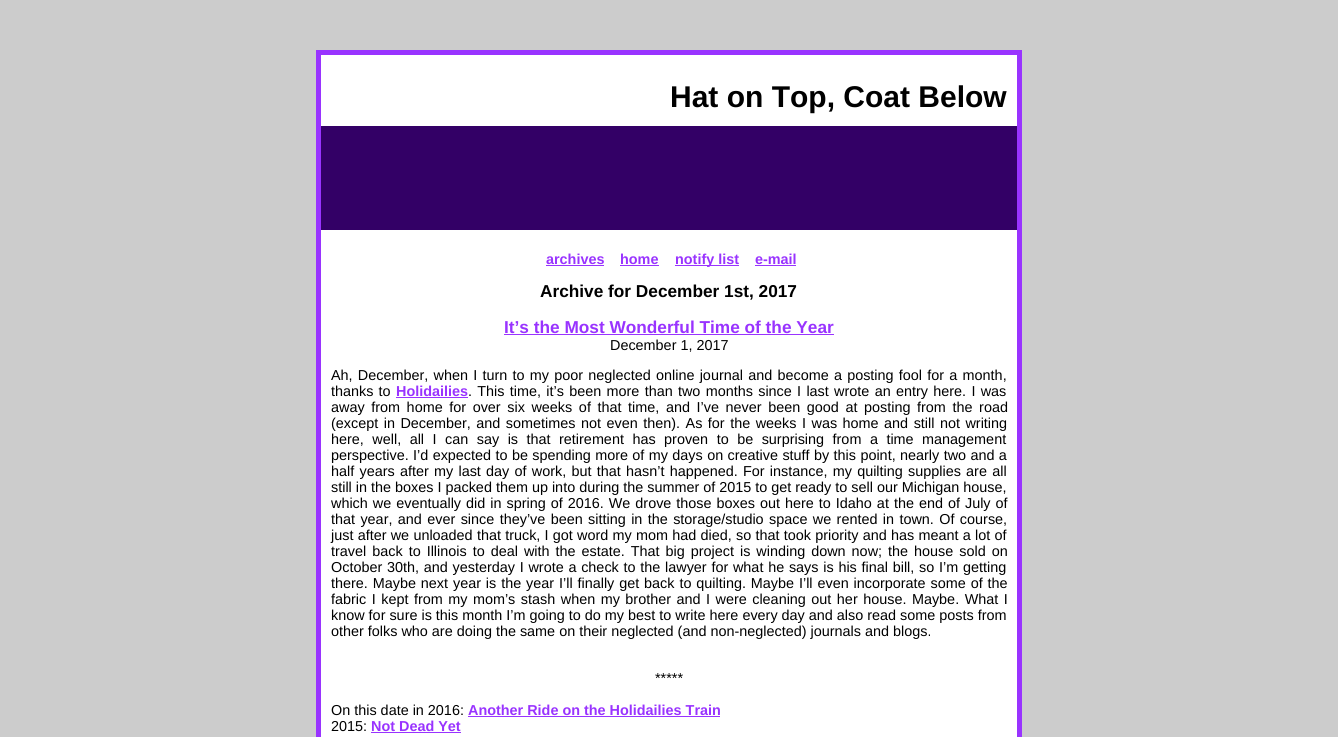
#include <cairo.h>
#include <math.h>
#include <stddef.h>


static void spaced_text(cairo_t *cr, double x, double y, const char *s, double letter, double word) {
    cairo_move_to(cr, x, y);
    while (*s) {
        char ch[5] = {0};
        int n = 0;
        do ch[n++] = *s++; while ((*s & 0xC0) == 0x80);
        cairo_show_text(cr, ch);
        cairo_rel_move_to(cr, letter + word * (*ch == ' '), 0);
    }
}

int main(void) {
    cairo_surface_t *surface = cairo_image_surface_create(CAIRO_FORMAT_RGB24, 1338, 737);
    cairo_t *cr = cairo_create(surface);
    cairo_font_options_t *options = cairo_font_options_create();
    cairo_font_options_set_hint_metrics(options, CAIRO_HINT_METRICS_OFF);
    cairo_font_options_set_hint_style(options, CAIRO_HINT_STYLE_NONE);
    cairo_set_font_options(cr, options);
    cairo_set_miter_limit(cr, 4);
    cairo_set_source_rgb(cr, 0.8, 0.8, 0.8);
    cairo_paint(cr);
    cairo_set_source_rgb(cr, 1, 1, 1);
    cairo_rectangle(cr, 318.5, 52.5, 701, 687);
    cairo_fill_preserve(cr);
    cairo_set_source_rgb(cr, 0.6, 0.2, 1);
    cairo_set_line_width(cr, 5);
    cairo_stroke(cr);
    cairo_select_font_face(cr, "Liberation Sans", CAIRO_FONT_SLANT_NORMAL, CAIRO_FONT_WEIGHT_BOLD);
    cairo_set_font_size(cr, 30);
    cairo_set_source_rgb(cr, 0, 0, 0);
    cairo_move_to(cr, 670, 107);
    cairo_show_text(cr, "Hat on Top, Coat Below");
    cairo_set_source_rgb(cr, 0.2, 0, 0.4);
    cairo_rectangle(cr, 321, 126, 696, 104);
    cairo_fill(cr);
    cairo_set_font_size(cr, 14.4);
    cairo_set_source_rgb(cr, 0.6, 0.2, 1);
    cairo_move_to(cr, 546, 264);
    cairo_show_text(cr, "archives");
    cairo_rectangle(cr, 546, 265, 58, 1);
    cairo_fill(cr);
    cairo_move_to(cr, 620, 264);
    cairo_show_text(cr, "home");
    cairo_rectangle(cr, 620, 265, 39, 1);
    cairo_fill(cr);
    cairo_rectangle(cr, 675, 265, 64, 1);
    cairo_fill(cr);
    cairo_move_to(cr, 675, 264);
    cairo_show_text(cr, "notify list");
    cairo_move_to(cr, 755, 264);
    cairo_show_text(cr, "e-mail");
    cairo_rectangle(cr, 755, 265, 41, 1);
    cairo_fill(cr);
    cairo_set_font_size(cr, 17.25);
    cairo_set_source_rgb(cr, 0, 0, 0);
    cairo_move_to(cr, 540, 297);
    cairo_show_text(cr, "Archive for December 1st, 2017");
    cairo_set_source_rgb(cr, 0.6, 0.2, 1);
    cairo_move_to(cr, 504, 333);
    cairo_show_text(cr, "It’s the Most Wonderful Time of the Year");
    cairo_rectangle(cr, 504, 334, 330, 1);
    cairo_fill(cr);
    cairo_select_font_face(cr, "Liberation Sans", CAIRO_FONT_SLANT_NORMAL, CAIRO_FONT_WEIGHT_NORMAL);
    cairo_set_font_size(cr, 14.4);
    cairo_set_source_rgb(cr, 0, 0, 0);
    cairo_move_to(cr, 610, 350);
    cairo_show_text(cr, "December 1, 2017");
    spaced_text(cr, 331, 380, "Ah, December, when I turn to my poor neglected online journal and become a posting fool for a month,", 0, 1.25);
    spaced_text(cr, 331, 396, "thanks to", 0, 1);
    cairo_select_font_face(cr, "Liberation Sans", CAIRO_FONT_SLANT_NORMAL, CAIRO_FONT_WEIGHT_BOLD);
    cairo_set_source_rgb(cr, 0.6, 0.2, 1);
    cairo_move_to(cr, 396, 396);
    cairo_show_text(cr, "Holidailies");
    cairo_rectangle(cr, 396, 397, 72, 1);
    cairo_fill(cr);
    cairo_select_font_face(cr, "Liberation Sans", CAIRO_FONT_SLANT_NORMAL, CAIRO_FONT_WEIGHT_NORMAL);
    cairo_set_source_rgb(cr, 0, 0, 0);
    spaced_text(cr, 468, 396, ". This time, it’s been more than two months since I last wrote an entry here. I was", 0, 1.3);
    spaced_text(cr, 331, 412, "away from home for over six weeks of that time, and I’ve never been good at posting from the road", 0, 2.6);
    spaced_text(cr, 331, 428, "(except in December, and sometimes not even then). As for the weeks I was home and still not writing", 0, 1.5);
    spaced_text(cr, 331, 444, "here, well, all I can say is that retirement has proven to be surprising from a time management", 0, 4.5);
    spaced_text(cr, 331, 460, "perspective. I’d expected to be spending more of my days on creative stuff by this point, nearly two and a", 0, 0.4);
    spaced_text(cr, 331, 476, "half years after my last day of work, but that hasn’t happened. For instance, my quilting supplies are all", 0, 1.25);
    cairo_move_to(cr, 331, 492);
    cairo_show_text(cr, "still in the boxes I packed them up into during the summer of 2015 to get ready to sell our Michigan house,");
    spaced_text(cr, 331, 508, "which we eventually did in spring of 2016. We drove those boxes out here to Idaho at the end of July of", 0, 1);
    spaced_text(cr, 331, 524, "that year, and ever since they’ve been sitting in the storage/studio space we rented in town. Of course,", 0, 1.4);
    spaced_text(cr, 331, 540, "just after we unloaded that truck, I got word my mom had died, so that took priority and has meant a lot of", 0, 0.25);
    spaced_text(cr, 331, 556, "travel back to Illinois to deal with the estate. That big project is winding down now; the house sold on", 0, 2);
    spaced_text(cr, 331, 572, "October 30th, and yesterday I wrote a check to the lawyer for what he says is his final bill, so I’m getting", 0, 0.75);
    spaced_text(cr, 331, 588, "there. Maybe next year is the year I’ll finally get back to quilting. Maybe I’ll even incorporate some of the", 0, 0.9);
    spaced_text(cr, 331, 604, "fabric I kept from my mom’s stash when my brother and I were cleaning out her house. Maybe. What I", 0, 1.5);
    cairo_move_to(cr, 331, 620);
    cairo_show_text(cr, "know for sure is this month I’m going to do my best to write here every day and also read some posts from");
    cairo_move_to(cr, 331, 636);
    cairo_show_text(cr, "other folks who are doing the same on their neglected (and non-neglected) journals and blogs.");
    cairo_move_to(cr, 655, 683);
    cairo_show_text(cr, "*****");
    cairo_move_to(cr, 331, 715);
    cairo_show_text(cr, "On this date in 2016:");
    cairo_select_font_face(cr, "Liberation Sans", CAIRO_FONT_SLANT_NORMAL, CAIRO_FONT_WEIGHT_BOLD);
    cairo_set_source_rgb(cr, 0.6, 0.2, 1);
    cairo_move_to(cr, 468, 715);
    cairo_show_text(cr, "Another Ride on the Holidailies Train");
    cairo_rectangle(cr, 468, 716, 252, 1);
    cairo_fill(cr);
    cairo_select_font_face(cr, "Liberation Sans", CAIRO_FONT_SLANT_NORMAL, CAIRO_FONT_WEIGHT_NORMAL);
    cairo_set_source_rgb(cr, 0, 0, 0);
    cairo_move_to(cr, 331, 731);
    cairo_show_text(cr, "2015:");
    cairo_select_font_face(cr, "Liberation Sans", CAIRO_FONT_SLANT_NORMAL, CAIRO_FONT_WEIGHT_BOLD);
    cairo_set_source_rgb(cr, 0.6, 0.2, 1);
    cairo_move_to(cr, 371, 731);
    cairo_show_text(cr, "Not Dead Yet");
    cairo_rectangle(cr, 371, 732, 90, 1);
    cairo_fill(cr);
    cairo_surface_write_to_png(surface, "page.png");
    cairo_font_options_destroy(options);
    cairo_destroy(cr);
    cairo_surface_destroy(surface);
    return 0;
}
